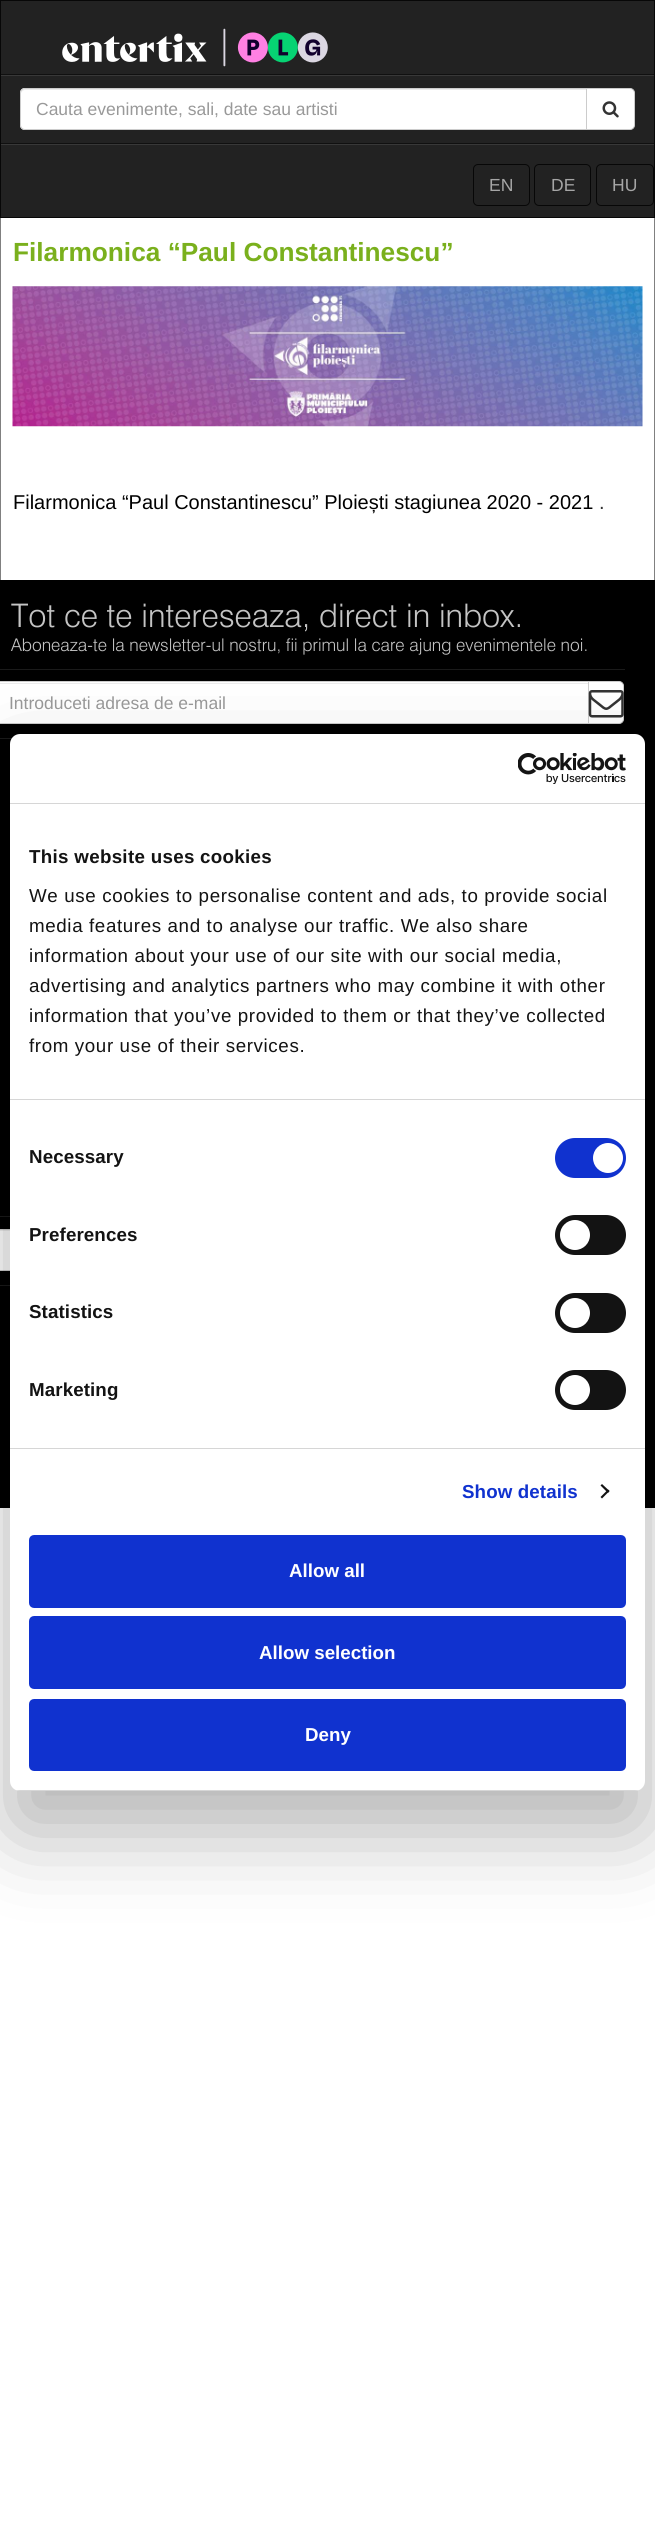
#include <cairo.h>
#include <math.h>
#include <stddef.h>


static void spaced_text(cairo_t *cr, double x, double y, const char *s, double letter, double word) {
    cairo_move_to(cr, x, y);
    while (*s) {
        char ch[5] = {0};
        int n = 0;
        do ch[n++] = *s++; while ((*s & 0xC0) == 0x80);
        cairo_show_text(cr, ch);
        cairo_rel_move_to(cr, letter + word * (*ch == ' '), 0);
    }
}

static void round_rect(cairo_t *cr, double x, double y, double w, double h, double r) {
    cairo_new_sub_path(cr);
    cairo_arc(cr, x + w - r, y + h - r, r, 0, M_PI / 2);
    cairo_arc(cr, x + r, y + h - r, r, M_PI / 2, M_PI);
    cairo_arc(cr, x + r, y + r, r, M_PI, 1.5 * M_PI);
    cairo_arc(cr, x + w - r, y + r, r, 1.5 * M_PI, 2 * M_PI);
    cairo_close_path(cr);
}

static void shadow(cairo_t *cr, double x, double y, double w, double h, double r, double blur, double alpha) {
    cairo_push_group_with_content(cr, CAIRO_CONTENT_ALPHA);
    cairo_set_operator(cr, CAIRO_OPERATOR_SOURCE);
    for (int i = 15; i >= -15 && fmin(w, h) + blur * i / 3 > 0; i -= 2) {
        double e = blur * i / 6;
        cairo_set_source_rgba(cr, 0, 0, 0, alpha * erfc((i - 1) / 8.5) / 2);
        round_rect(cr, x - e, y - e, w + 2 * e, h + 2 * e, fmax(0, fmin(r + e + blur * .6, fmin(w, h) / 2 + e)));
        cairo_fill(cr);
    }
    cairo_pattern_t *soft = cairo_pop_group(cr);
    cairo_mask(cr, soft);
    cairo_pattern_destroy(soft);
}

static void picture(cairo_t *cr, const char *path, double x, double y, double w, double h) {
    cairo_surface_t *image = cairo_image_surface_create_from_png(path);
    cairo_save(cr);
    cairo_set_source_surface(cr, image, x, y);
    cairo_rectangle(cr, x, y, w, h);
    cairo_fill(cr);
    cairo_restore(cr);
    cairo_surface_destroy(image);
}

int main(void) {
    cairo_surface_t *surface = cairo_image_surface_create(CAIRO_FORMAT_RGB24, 655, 2523);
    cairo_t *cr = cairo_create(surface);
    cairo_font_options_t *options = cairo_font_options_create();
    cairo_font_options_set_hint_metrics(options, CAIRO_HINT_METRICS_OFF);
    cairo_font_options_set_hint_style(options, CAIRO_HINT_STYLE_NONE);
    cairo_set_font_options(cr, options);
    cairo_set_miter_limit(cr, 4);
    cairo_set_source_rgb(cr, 1, 1, 1);
    cairo_paint(cr);
    cairo_set_source_rgb(cr, 0.133, 0.133, 0.133);
    cairo_rectangle(cr, 0.5, 0.5, 654, 217);
    cairo_fill_preserve(cr);
    cairo_set_source_rgb(cr, 0.031, 0.031, 0.031);
    cairo_set_line_width(cr, 1);
    cairo_stroke(cr);
    picture(cr, "img1.png", 62, 28, 266, 39);
    cairo_set_source_rgb(cr, 0.22, 0.22, 0.22);
    cairo_new_path(cr);
    cairo_move_to(cr, 1, 75);
    cairo_line_to(cr, 1, 145);
    cairo_line_to(cr, 654, 145);
    cairo_line_to(cr, 654, 75);
    cairo_line_to(cr, 654, 144);
    cairo_line_to(cr, 1, 144);
    cairo_close_path(cr);
    cairo_fill(cr);
    cairo_rectangle(cr, 1, 75, 653, 1);
    cairo_fill(cr);
    cairo_set_source_rgb(cr, 0.063, 0.063, 0.063);
    cairo_rectangle(cr, 1, 74, 653, 1);
    cairo_fill(cr);
    cairo_rectangle(cr, 1, 143, 653, 1);
    cairo_fill(cr);
    cairo_set_source_rgb(cr, 1, 1, 1);
    cairo_new_path(cr);
    cairo_move_to(cr, 25, 88);
    cairo_line_to(cr, 588, 88);
    cairo_line_to(cr, 588, 130);
    cairo_line_to(cr, 25, 130);
    cairo_curve_to(cr, 22, 130, 20, 128, 20, 125);
    cairo_line_to(cr, 20, 93);
    cairo_curve_to(cr, 20, 90, 22, 88, 25, 88);
    cairo_close_path(cr);
    cairo_fill(cr);
    cairo_set_source_rgb(cr, 0.925, 0.925, 0.925);
    cairo_new_path(cr);
    cairo_move_to(cr, 25, 90);
    cairo_line_to(cr, 586, 90);
    cairo_line_to(cr, 586, 89);
    cairo_line_to(cr, 25, 89);
    cairo_curve_to(cr, 22, 89, 21, 91, 21, 94);
    cairo_curve_to(cr, 21, 92, 23, 90, 25, 90);
    cairo_close_path(cr);
    cairo_fill(cr);
    cairo_new_path(cr);
    cairo_move_to(cr, 25, 88.5);
    cairo_line_to(cr, 587.5, 88.5);
    cairo_line_to(cr, 587.5, 129.5);
    cairo_line_to(cr, 25, 129.5);
    cairo_curve_to(cr, 22.5, 129.5, 20.5, 127.5, 20.5, 125);
    cairo_line_to(cr, 20.5, 93);
    cairo_curve_to(cr, 20.5, 90.5, 22.5, 88.5, 25, 88.5);
    cairo_close_path(cr);
    cairo_set_source_rgb(cr, 0.8, 0.8, 0.8);
    cairo_stroke(cr);
    cairo_select_font_face(cr, "Liberation Sans", CAIRO_FONT_SLANT_NORMAL, CAIRO_FONT_WEIGHT_NORMAL);
    cairo_set_font_size(cr, 17.5);
    cairo_set_source_rgb(cr, 0.6, 0.6, 0.6);
    cairo_move_to(cr, 36, 115);
    cairo_show_text(cr, "Cauta evenimente, sali, date sau artisti");
    cairo_set_source_rgb(cr, 1, 1, 1);
    cairo_new_path(cr);
    cairo_move_to(cr, 586.5, 88.5);
    cairo_line_to(cr, 630, 88.5);
    cairo_curve_to(cr, 632.5, 88.5, 634.5, 90.5, 634.5, 93);
    cairo_line_to(cr, 634.5, 125);
    cairo_curve_to(cr, 634.5, 127.5, 632.5, 129.5, 630, 129.5);
    cairo_line_to(cr, 586.5, 129.5);
    cairo_close_path(cr);
    cairo_fill_preserve(cr);
    cairo_set_source_rgb(cr, 0.8, 0.8, 0.8);
    cairo_stroke(cr);
    picture(cr, "img2.png", 602, 101, 17, 17);
    round_rect(cr, 473.5, 164.5, 56, 41, 4.5);
    cairo_set_source_rgb(cr, 0.031, 0.031, 0.031);
    cairo_stroke(cr);
    cairo_set_source_rgb(cr, 0.651, 0.651, 0.651);
    cairo_move_to(cr, 489, 191);
    cairo_show_text(cr, "EN");
    round_rect(cr, 534.5, 164.5, 56, 41, 4.5);
    cairo_set_source_rgb(cr, 0.031, 0.031, 0.031);
    cairo_stroke(cr);
    cairo_set_source_rgb(cr, 0.651, 0.651, 0.651);
    cairo_move_to(cr, 551, 191);
    cairo_show_text(cr, "DE");
    round_rect(cr, 596.5, 164.5, 57, 41, 4.5);
    cairo_set_source_rgb(cr, 0.031, 0.031, 0.031);
    cairo_stroke(cr);
    cairo_set_source_rgb(cr, 0.651, 0.651, 0.651);
    cairo_move_to(cr, 612, 191);
    cairo_show_text(cr, "HU");
    cairo_set_source_rgb(cr, 0.502, 0.502, 0.502);
    cairo_rectangle(cr, 654, 218, 1, 362);
    cairo_fill(cr);
    cairo_rectangle(cr, 0, 218, 1, 362);
    cairo_fill(cr);
    cairo_select_font_face(cr, "Liberation Sans", CAIRO_FONT_SLANT_NORMAL, CAIRO_FONT_WEIGHT_BOLD);
    cairo_set_font_size(cr, 26.25);
    cairo_set_source_rgb(cr, 0.478, 0.69, 0.114);
    cairo_move_to(cr, 13, 261);
    cairo_show_text(cr, "Filarmonica “Paul Constantinescu”");
    picture(cr, "img3.png", 12, 286, 631, 141);
    cairo_select_font_face(cr, "Liberation Sans", CAIRO_FONT_SLANT_NORMAL, CAIRO_FONT_WEIGHT_NORMAL);
    cairo_set_font_size(cr, 20);
    cairo_set_source_rgb(cr, 0, 0, 0);
    cairo_move_to(cr, 13, 509);
    cairo_show_text(cr, "Filarmonica “Paul Constantinescu” Ploiești stagiunea 2020 - 2021");
    cairo_set_source_rgb(cr, 0.2, 0.2, 0.2);
    cairo_move_to(cr, 599, 509);
    cairo_show_text(cr, ".");
    cairo_set_source_rgb(cr, 0, 0, 0);
    cairo_rectangle(cr, 0, 580, 655, 928);
    cairo_fill(cr);
    cairo_select_font_face(cr, "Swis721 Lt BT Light", CAIRO_FONT_SLANT_NORMAL, CAIRO_FONT_WEIGHT_NORMAL);
    cairo_set_font_size(cr, 32.5);
    cairo_set_source_rgb(cr, 0.769, 0.769, 0.769);
    cairo_move_to(cr, 11, 627);
    cairo_show_text(cr, "Tot ce te intereseaza, direct in inbox.");
    cairo_set_font_size(cr, 17.5);
    cairo_move_to(cr, 11, 651);
    cairo_show_text(cr, "Aboneaza-te la newsletter-ul nostru, fii primul la care ajung evenimentele noi.");
    cairo_set_source_rgb(cr, 0.102, 0.102, 0.102);
    cairo_rectangle(cr, 0, 738, 12, 1);
    cairo_fill(cr);
    cairo_rectangle(cr, 0, 669, 625, 1);
    cairo_fill(cr);
    cairo_set_source_rgb(cr, 1, 1, 1);
    cairo_rectangle(cr, 0, 682, 588, 41);
    cairo_fill(cr);
    cairo_set_source_rgb(cr, 0.925, 0.925, 0.925);
    cairo_new_path(cr);
    cairo_move_to(cr, -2, 684);
    cairo_line_to(cr, 588, 684);
    cairo_line_to(cr, 588, 683);
    cairo_line_to(cr, -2, 683);
    cairo_curve_to(cr, -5, 683, -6, 685, -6, 688);
    cairo_curve_to(cr, -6, 685, -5, 684, -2, 684);
    cairo_close_path(cr);
    cairo_fill(cr);
    cairo_rectangle(cr, -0.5, 681.5, 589, 42);
    cairo_set_source_rgb(cr, 0.8, 0.8, 0.8);
    cairo_stroke(cr);
    cairo_select_font_face(cr, "Liberation Sans", CAIRO_FONT_SLANT_NORMAL, CAIRO_FONT_WEIGHT_NORMAL);
    cairo_set_source_rgb(cr, 0.6, 0.6, 0.6);
    cairo_move_to(cr, 9, 709);
    cairo_show_text(cr, "Introduceti adresa de e-mail");
    cairo_set_source_rgb(cr, 1, 1, 1);
    cairo_new_path(cr);
    cairo_move_to(cr, 588.5, 681.5);
    cairo_line_to(cr, 619, 681.5);
    cairo_curve_to(cr, 621.5, 681.5, 623.5, 683.5, 623.5, 686);
    cairo_line_to(cr, 623.5, 719);
    cairo_curve_to(cr, 623.5, 721.5, 621.5, 723.5, 619, 723.5);
    cairo_line_to(cr, 588.5, 723.5);
    cairo_close_path(cr);
    cairo_fill_preserve(cr);
    cairo_set_source_rgb(cr, 0.8, 0.8, 0.8);
    cairo_stroke(cr);
    picture(cr, "img4.png", 588, 690, 36, 28);
    cairo_set_source_rgb(cr, 0.102, 0.102, 0.102);
    cairo_rectangle(cr, 0, 1285, 10, 1);
    cairo_fill(cr);
    cairo_rectangle(cr, 0, 1216, 10, 1);
    cairo_fill(cr);
    cairo_set_source_rgb(cr, 1, 1, 1);
    cairo_rectangle(cr, 0, 1231, 10, 39);
    cairo_fill(cr);
    cairo_set_source_rgb(cr, 0.925, 0.925, 0.925);
    cairo_new_path(cr);
    cairo_move_to(cr, -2, 1231);
    cairo_line_to(cr, 590, 1231);
    cairo_line_to(cr, 590, 1230);
    cairo_line_to(cr, -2, 1230);
    cairo_curve_to(cr, -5, 1230, -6, 1232, -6, 1235);
    cairo_curve_to(cr, -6, 1233, -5, 1231, -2, 1231);
    cairo_close_path(cr);
    cairo_fill(cr);
    cairo_rectangle(cr, -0.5, 1229.5, 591, 41);
    cairo_set_source_rgb(cr, 0.8, 0.8, 0.8);
    cairo_stroke(cr);
    cairo_set_source_rgb(cr, 0, 0, 0);
    shadow(cr, 10, 774, 635, 1057, 10, 42.5, 0.3);
    cairo_set_source_rgb(cr, 1, 1, 1);
    round_rect(cr, 10, 734, 635, 1057, 10);
    cairo_fill(cr);
    cairo_set_source_rgb(cr, 0.839, 0.839, 0.839);
    cairo_rectangle(cr, 10, 803, 635, 1);
    cairo_fill(cr);
    picture(cr, "img5.png", 518, 753, 108, 31);
    cairo_rectangle(cr, 10, 1099, 635, 1);
    cairo_fill(cr);
    cairo_select_font_face(cr, "Liberation Sans", CAIRO_FONT_SLANT_NORMAL, CAIRO_FONT_WEIGHT_BOLD);
    cairo_set_font_size(cr, 18.75);
    cairo_set_source_rgb(cr, 0.078, 0.078, 0.078);
    spaced_text(cr, 29, 863, "This website uses cookies", 0.3, 0);
    cairo_select_font_face(cr, "Liberation Sans", CAIRO_FONT_SLANT_NORMAL, CAIRO_FONT_WEIGHT_NORMAL);
    spaced_text(cr, 29, 902, "We use cookies to personalise content and ads, to provide social", 0.62, 0);
    spaced_text(cr, 29, 932, "media features and to analyse our traffic. We also share", 0.62, 0);
    spaced_text(cr, 29, 962, "information about your use of our site with our social media,", 0.62, 0);
    spaced_text(cr, 29, 992, "advertising and analytics partners who may combine it with other", 0.62, 0);
    spaced_text(cr, 29, 1022, "information that you’ve provided to them or that they’ve collected", 0.62, 0);
    spaced_text(cr, 29, 1052, "from your use of their services.", 0.62, 0);
    cairo_set_source_rgb(cr, 0.839, 0.839, 0.839);
    cairo_rectangle(cr, 10, 1448, 635, 1);
    cairo_fill(cr);
    cairo_select_font_face(cr, "Liberation Sans", CAIRO_FONT_SLANT_NORMAL, CAIRO_FONT_WEIGHT_BOLD);
    cairo_set_source_rgb(cr, 0.078, 0.078, 0.078);
    spaced_text(cr, 29, 1163, "Necessary", 0.1, 0);
    cairo_set_source_rgb(cr, 0.063, 0.196, 0.812);
    round_rect(cr, 555, 1138, 71, 40, 20);
    cairo_fill(cr);
    cairo_set_source_rgb(cr, 1, 1, 1);
    cairo_arc(cr, 608, 1158, 15, 0, 2 * M_PI);
    cairo_fill(cr);
    cairo_set_source_rgb(cr, 0.078, 0.078, 0.078);
    spaced_text(cr, 29, 1241, "Preferences", 0.1, 0);
    round_rect(cr, 555, 1215, 71, 40, 20);
    cairo_fill(cr);
    cairo_set_source_rgb(cr, 1, 1, 1);
    cairo_arc(cr, 575, 1235, 15, 0, 2 * M_PI);
    cairo_fill(cr);
    cairo_set_source_rgb(cr, 0.078, 0.078, 0.078);
    spaced_text(cr, 29, 1318, "Statistics", 0.1, 0);
    round_rect(cr, 555, 1293, 71, 40, 20);
    cairo_fill(cr);
    cairo_set_source_rgb(cr, 1, 1, 1);
    cairo_arc(cr, 575, 1313, 15, 0, 2 * M_PI);
    cairo_fill(cr);
    cairo_set_source_rgb(cr, 0.078, 0.078, 0.078);
    spaced_text(cr, 29, 1396, "Marketing", 0.1, 0);
    round_rect(cr, 555, 1370, 71, 40, 20);
    cairo_fill(cr);
    cairo_set_source_rgb(cr, 1, 1, 1);
    cairo_arc(cr, 575, 1390, 15, 0, 2 * M_PI);
    cairo_fill(cr);
    cairo_set_source_rgb(cr, 0.063, 0.196, 0.812);
    spaced_text(cr, 462, 1498, "Show details", 0.1, 0);
    cairo_set_source_rgb(cr, 0.078, 0.078, 0.078);
    cairo_new_path(cr);
    cairo_move_to(cr, 602, 1484);
    cairo_line_to(cr, 609.5, 1491);
    cairo_line_to(cr, 608, 1493);
    cairo_line_to(cr, 600.5, 1485.5);
    cairo_close_path(cr);
    cairo_fill(cr);
    cairo_new_path(cr);
    cairo_move_to(cr, 608, 1489.5);
    cairo_line_to(cr, 609.5, 1491);
    cairo_line_to(cr, 602, 1498.5);
    cairo_line_to(cr, 600.5, 1497);
    cairo_close_path(cr);
    cairo_fill(cr);
    cairo_save(cr);
    round_rect(cr, 10, 734, 635, 1057, 10);
    cairo_clip(cr);
    cairo_set_source_rgb(cr, 0.839, 0.839, 0.839);
    cairo_rectangle(cr, 10, 1790, 635, 1);
    cairo_fill(cr);
    cairo_restore(cr);
    cairo_set_source_rgb(cr, 0.063, 0.196, 0.812);
    round_rect(cr, 30.5, 1536.5, 594, 70, 3.5);
    cairo_fill_preserve(cr);
    cairo_set_line_width(cr, 3);
    cairo_stroke(cr);
    cairo_set_source_rgb(cr, 1, 1, 1);
    cairo_move_to(cr, 289, 1577);
    cairo_show_text(cr, "Allow all");
    cairo_set_source_rgb(cr, 0.063, 0.196, 0.812);
    round_rect(cr, 30.5, 1617.5, 594, 70, 3.5);
    cairo_fill_preserve(cr);
    cairo_stroke(cr);
    cairo_set_source_rgb(cr, 1, 1, 1);
    cairo_move_to(cr, 259, 1659);
    cairo_show_text(cr, "Allow selection");
    cairo_set_source_rgb(cr, 0.063, 0.196, 0.812);
    round_rect(cr, 30.5, 1700.5, 594, 69, 3.5);
    cairo_fill_preserve(cr);
    cairo_stroke(cr);
    cairo_set_source_rgb(cr, 1, 1, 1);
    cairo_move_to(cr, 305, 1741);
    cairo_show_text(cr, "Deny");
    cairo_surface_write_to_png(surface, "page.png");
    cairo_font_options_destroy(options);
    cairo_destroy(cr);
    cairo_surface_destroy(surface);
    return 0;
}
